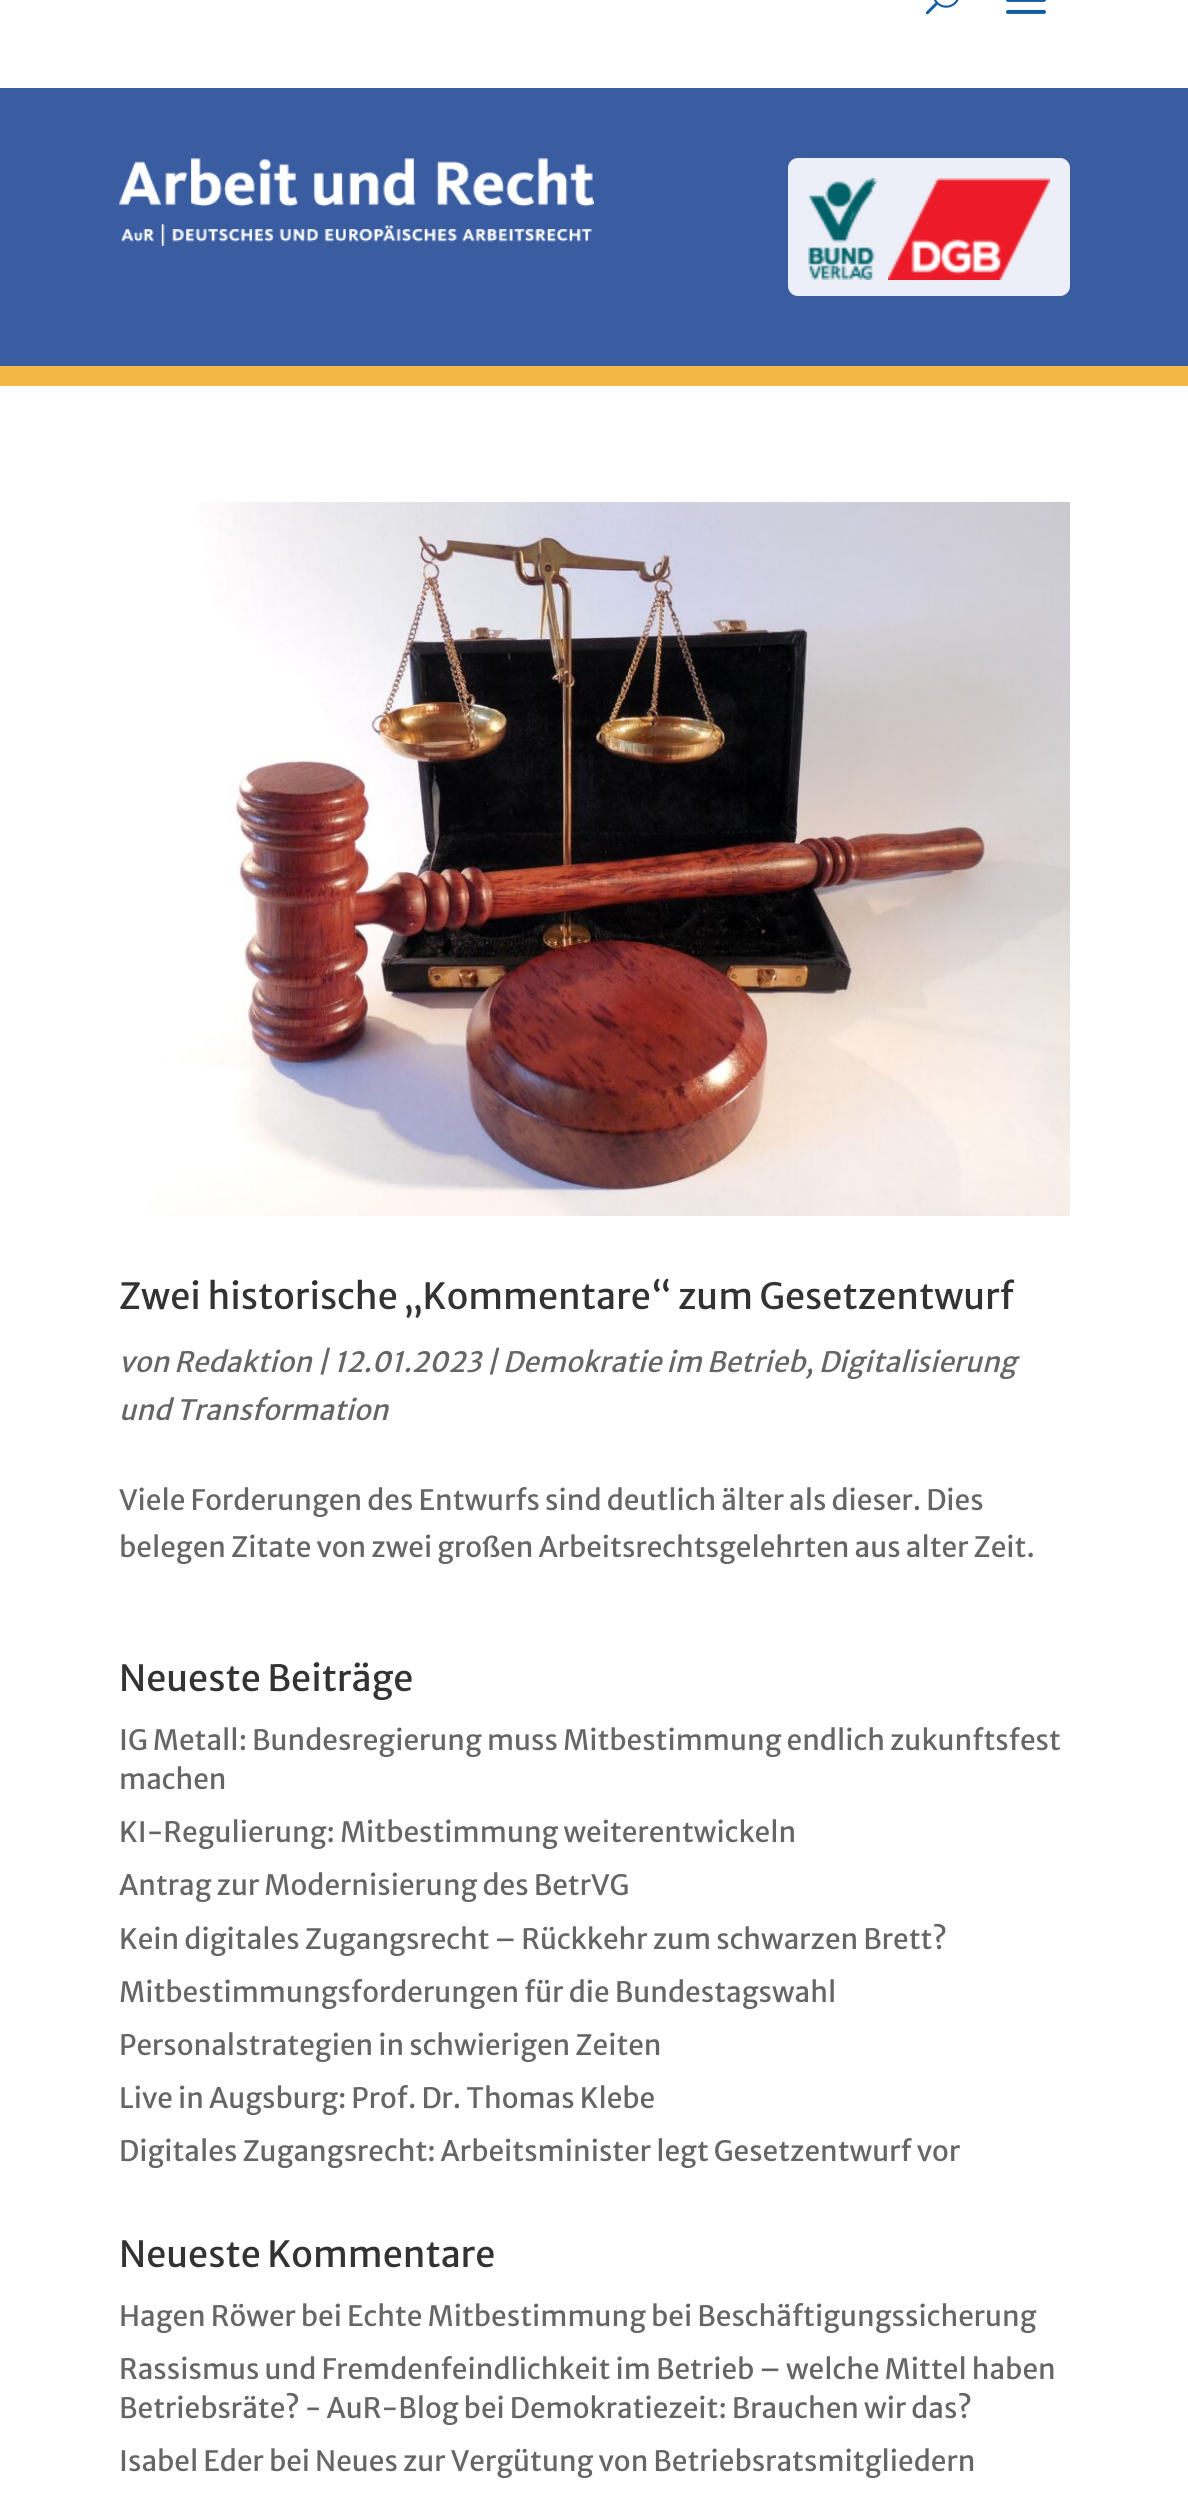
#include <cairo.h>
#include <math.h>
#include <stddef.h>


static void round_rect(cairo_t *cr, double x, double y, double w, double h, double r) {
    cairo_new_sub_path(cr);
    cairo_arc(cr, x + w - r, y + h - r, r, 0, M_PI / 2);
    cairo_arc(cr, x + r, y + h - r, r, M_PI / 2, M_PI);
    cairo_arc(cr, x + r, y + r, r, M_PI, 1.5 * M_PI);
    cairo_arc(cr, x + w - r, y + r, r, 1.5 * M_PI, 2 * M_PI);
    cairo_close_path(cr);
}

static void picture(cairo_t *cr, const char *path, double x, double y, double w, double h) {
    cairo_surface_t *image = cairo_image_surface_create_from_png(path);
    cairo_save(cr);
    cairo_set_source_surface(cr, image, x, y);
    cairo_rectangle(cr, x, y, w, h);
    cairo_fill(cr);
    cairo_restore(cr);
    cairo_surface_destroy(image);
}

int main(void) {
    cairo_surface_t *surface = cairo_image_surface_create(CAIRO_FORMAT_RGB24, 1188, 2508);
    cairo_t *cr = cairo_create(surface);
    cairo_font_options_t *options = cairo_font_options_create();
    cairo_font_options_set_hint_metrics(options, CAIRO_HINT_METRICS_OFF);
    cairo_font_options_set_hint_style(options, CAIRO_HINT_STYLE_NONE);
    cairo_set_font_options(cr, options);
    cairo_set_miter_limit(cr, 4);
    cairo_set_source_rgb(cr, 1, 1, 1);
    cairo_paint(cr);
    picture(cr, "img1.png", 925, 0, 34, 15);
    picture(cr, "img2.png", 1006, 0, 40, 14);
    cairo_set_source_rgb(cr, 0.227, 0.365, 0.635);
    cairo_rectangle(cr, 0, 88, 1188, 278);
    cairo_fill(cr);
    cairo_set_source_rgb(cr, 0.953, 0.718, 0.282);
    cairo_rectangle(cr, 0, 366, 1188, 20);
    cairo_fill(cr);
    picture(cr, "img3.png", 118, 158, 476, 88);
    cairo_set_source_rgb(cr, 0.922, 0.937, 0.965);
    round_rect(cr, 788, 158, 282, 138, 10);
    cairo_fill(cr);
    picture(cr, "img4.png", 808, 178, 70, 102);
    picture(cr, "img5.png", 888, 178, 162, 102);
    picture(cr, "img6.png", 149, 502, 921, 714);
    cairo_select_font_face(cr, "Merriweather Sans", CAIRO_FONT_SLANT_NORMAL, CAIRO_FONT_WEIGHT_NORMAL);
    cairo_set_font_size(cr, 36);
    cairo_set_source_rgb(cr, 0.2, 0.2, 0.2);
    cairo_move_to(cr, 119, 1309);
    cairo_show_text(cr, "Zwei historische „Kommentare“ zum Gesetzentwurf");
    cairo_select_font_face(cr, "Merriweather Sans", CAIRO_FONT_SLANT_ITALIC, CAIRO_FONT_WEIGHT_NORMAL);
    cairo_set_font_size(cr, 28);
    cairo_set_source_rgb(cr, 0.4, 0.4, 0.4);
    cairo_move_to(cr, 119, 1372);
    cairo_show_text(cr, "von Redaktion | 12.01.2023 | Demokratie im Betrieb, Digitalisierung");
    cairo_move_to(cr, 119, 1420);
    cairo_show_text(cr, "und Transformation");
    cairo_select_font_face(cr, "Merriweather Sans", CAIRO_FONT_SLANT_NORMAL, CAIRO_FONT_WEIGHT_NORMAL);
    cairo_move_to(cr, 119, 1510);
    cairo_show_text(cr, "Viele Forderungen des Entwurfs sind deutlich älter als dieser. Dies");
    cairo_move_to(cr, 119, 1557);
    cairo_show_text(cr, "belegen Zitate von zwei großen Arbeitsrechtsgelehrten aus alter Zeit.");
    cairo_set_font_size(cr, 36);
    cairo_set_source_rgb(cr, 0.2, 0.2, 0.2);
    cairo_move_to(cr, 119, 1691);
    cairo_show_text(cr, "Neueste Beiträge");
    cairo_set_font_size(cr, 28);
    cairo_set_source_rgb(cr, 0.4, 0.4, 0.4);
    cairo_move_to(cr, 119, 1750);
    cairo_show_text(cr, "IG Metall: Bundesregierung muss Mitbestimmung endlich zukunftsfest");
    cairo_move_to(cr, 119, 1789);
    cairo_show_text(cr, "machen");
    cairo_move_to(cr, 119, 1842);
    cairo_show_text(cr, "KI-Regulierung: Mitbestimmung weiterentwickeln");
    cairo_move_to(cr, 119, 1895);
    cairo_show_text(cr, "Antrag zur Modernisierung des BetrVG");
    cairo_move_to(cr, 119, 1949);
    cairo_show_text(cr, "Kein digitales Zugangsrecht – Rückkehr zum schwarzen Brett?");
    cairo_move_to(cr, 119, 2002);
    cairo_show_text(cr, "Mitbestimmungsforderungen für die Bundestagswahl");
    cairo_move_to(cr, 119, 2055);
    cairo_show_text(cr, "Personalstrategien in schwierigen Zeiten");
    cairo_move_to(cr, 119, 2108);
    cairo_show_text(cr, "Live in Augsburg: Prof. Dr. Thomas Klebe");
    cairo_move_to(cr, 119, 2161);
    cairo_show_text(cr, "Digitales Zugangsrecht: Arbeitsminister legt Gesetzentwurf vor");
    cairo_set_font_size(cr, 36);
    cairo_set_source_rgb(cr, 0.2, 0.2, 0.2);
    cairo_move_to(cr, 119, 2267);
    cairo_show_text(cr, "Neueste Kommentare");
    cairo_set_font_size(cr, 28);
    cairo_set_source_rgb(cr, 0.4, 0.4, 0.4);
    cairo_move_to(cr, 119, 2326);
    cairo_show_text(cr, "Hagen Röwer bei Echte Mitbestimmung bei Beschäftigungssicherung");
    cairo_move_to(cr, 119, 2379);
    cairo_show_text(cr, "Rassismus und Fremdenfeindlichkeit im Betrieb – welche Mittel haben");
    cairo_move_to(cr, 119, 2418);
    cairo_show_text(cr, "Betriebsräte? - AuR-Blog bei Demokratiezeit: Brauchen wir das?");
    cairo_move_to(cr, 119, 2471);
    cairo_show_text(cr, "Isabel Eder bei Neues zur Vergütung von Betriebsratsmitgliedern");
    cairo_surface_write_to_png(surface, "page.png");
    cairo_font_options_destroy(options);
    cairo_destroy(cr);
    cairo_surface_destroy(surface);
    return 0;
}
